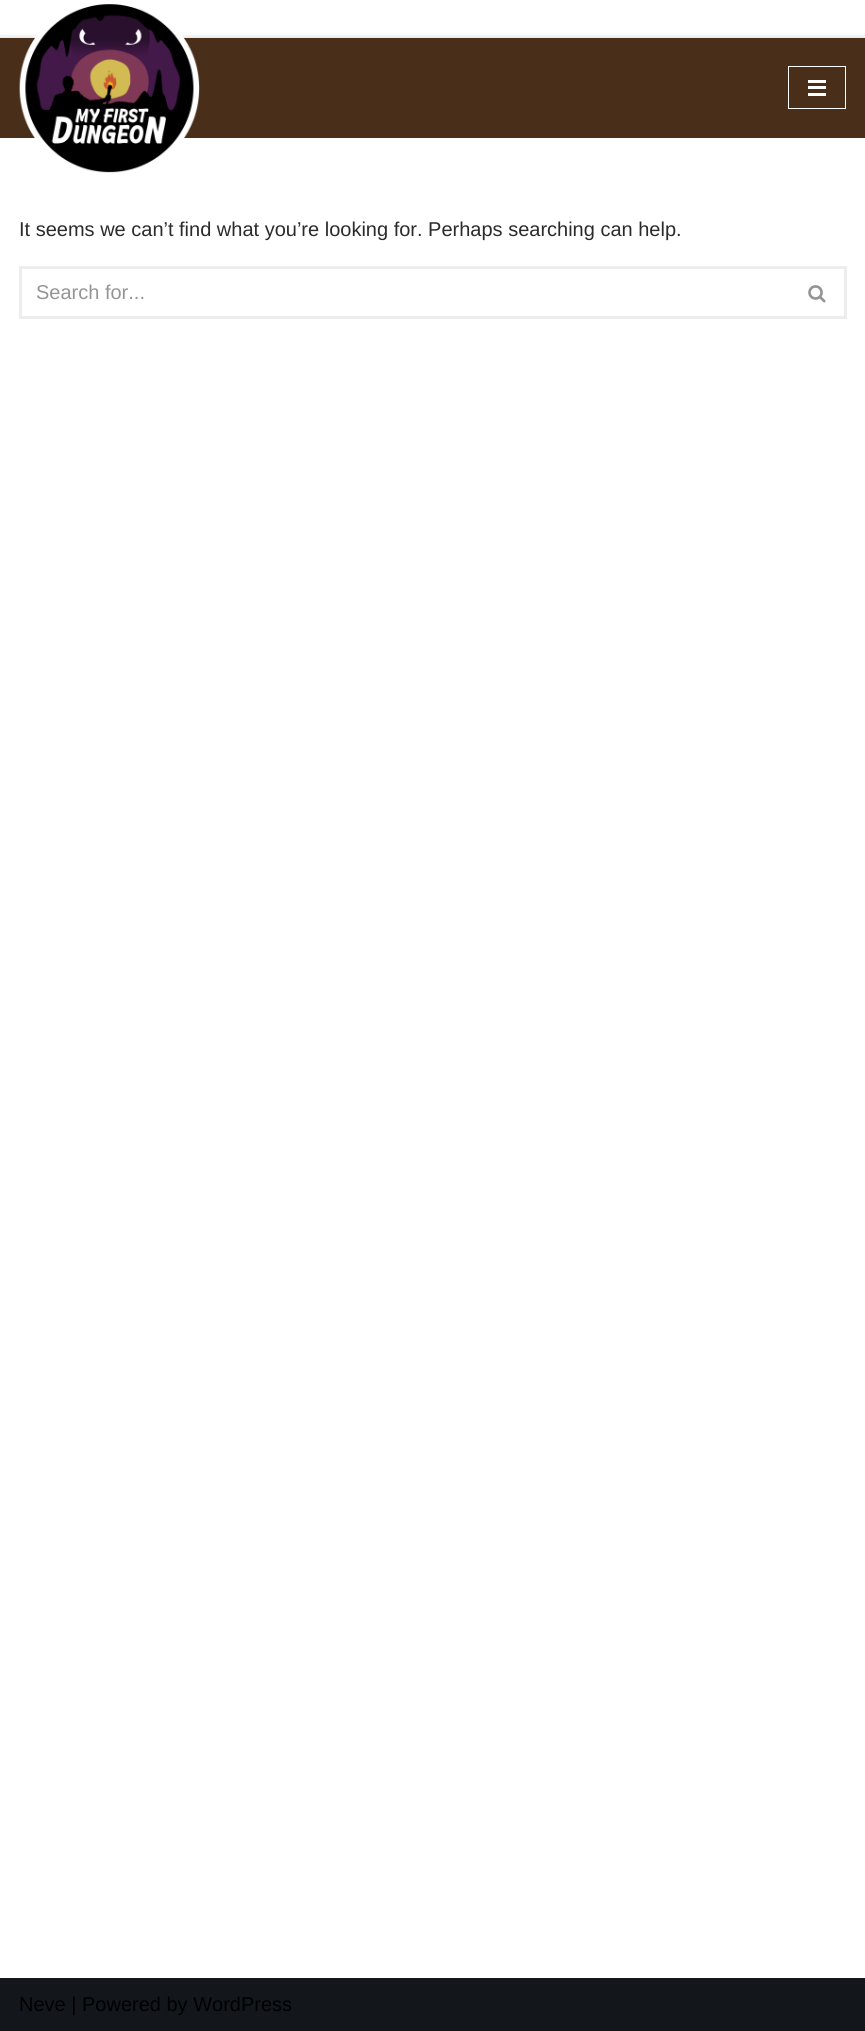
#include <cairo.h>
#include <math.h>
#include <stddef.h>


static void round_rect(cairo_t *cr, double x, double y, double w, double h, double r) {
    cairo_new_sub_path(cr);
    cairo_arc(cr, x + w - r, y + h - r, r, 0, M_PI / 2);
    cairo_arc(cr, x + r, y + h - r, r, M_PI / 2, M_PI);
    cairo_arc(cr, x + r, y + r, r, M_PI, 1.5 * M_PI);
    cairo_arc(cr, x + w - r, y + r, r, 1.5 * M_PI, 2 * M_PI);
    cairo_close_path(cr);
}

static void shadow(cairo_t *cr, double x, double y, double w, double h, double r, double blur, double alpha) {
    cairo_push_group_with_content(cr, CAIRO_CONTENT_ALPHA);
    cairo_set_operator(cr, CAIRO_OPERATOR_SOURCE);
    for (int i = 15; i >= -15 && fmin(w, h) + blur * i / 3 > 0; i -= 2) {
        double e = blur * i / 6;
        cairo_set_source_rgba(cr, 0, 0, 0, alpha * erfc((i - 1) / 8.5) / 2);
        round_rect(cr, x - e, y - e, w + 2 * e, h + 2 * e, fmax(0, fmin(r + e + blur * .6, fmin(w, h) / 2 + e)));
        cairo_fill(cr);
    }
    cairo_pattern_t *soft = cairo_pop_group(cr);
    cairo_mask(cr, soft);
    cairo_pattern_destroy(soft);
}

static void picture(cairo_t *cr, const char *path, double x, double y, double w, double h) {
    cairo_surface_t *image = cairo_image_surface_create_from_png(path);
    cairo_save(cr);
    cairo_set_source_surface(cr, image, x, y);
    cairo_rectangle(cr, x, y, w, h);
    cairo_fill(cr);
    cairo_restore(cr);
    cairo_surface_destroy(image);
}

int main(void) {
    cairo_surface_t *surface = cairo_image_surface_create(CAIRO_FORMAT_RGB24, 865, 2031);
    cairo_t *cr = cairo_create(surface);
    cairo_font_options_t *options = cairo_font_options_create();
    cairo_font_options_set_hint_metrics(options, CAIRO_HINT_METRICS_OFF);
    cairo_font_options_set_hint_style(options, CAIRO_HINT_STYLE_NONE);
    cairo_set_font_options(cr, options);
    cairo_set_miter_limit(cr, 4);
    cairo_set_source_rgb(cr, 1, 1, 1);
    cairo_paint(cr);
    cairo_set_source_rgb(cr, 0, 0, 0);
    shadow(cr, 0, 36, 865, 100, 0, 2, 0.1);
    cairo_set_source_rgb(cr, 0.286, 0.18, 0.102);
    cairo_rectangle(cr, 0, 38, 865, 100);
    cairo_fill(cr);
    picture(cr, "img1.png", 19, 4, 181, 169);
    cairo_rectangle(cr, 788.5, 66.5, 57, 42);
    cairo_set_source_rgb(cr, 0.996, 0.996, 0.996);
    cairo_set_line_width(cr, 1);
    cairo_stroke(cr);
    cairo_rectangle(cr, 808, 80, 18, 3);
    cairo_fill(cr);
    cairo_rectangle(cr, 808, 86, 18, 3);
    cairo_fill(cr);
    cairo_rectangle(cr, 808, 93, 18, 3);
    cairo_fill(cr);
    cairo_select_font_face(cr, "Liberation Sans", CAIRO_FONT_SLANT_NORMAL, CAIRO_FONT_WEIGHT_NORMAL);
    cairo_set_font_size(cr, 20);
    cairo_set_source_rgb(cr, 0.169, 0.169, 0.169);
    cairo_move_to(cr, 19, 236);
    cairo_show_text(cr, "It seems we can’t find what you’re looking for. Perhaps searching can help.");
    cairo_set_source_rgb(cr, 0.929, 0.929, 0.929);
    cairo_rectangle(cr, 19, 266, 827, 3);
    cairo_fill(cr);
    cairo_rectangle(cr, 19, 316, 771, 3);
    cairo_fill(cr);
    cairo_rectangle(cr, 19, 266, 3, 53);
    cairo_fill(cr);
    cairo_set_source_rgb(cr, 0.584, 0.584, 0.584);
    cairo_move_to(cr, 36, 299);
    cairo_show_text(cr, "Search for...");
    cairo_set_source_rgb(cr, 0.929, 0.929, 0.929);
    cairo_rectangle(cr, 844, 266, 3, 53);
    cairo_fill(cr);
    cairo_rectangle(cr, 790, 316, 56, 3);
    cairo_fill(cr);
    picture(cr, "img2.png", 808, 285, 18, 18);
    cairo_set_source_rgb(cr, 0.078, 0.09, 0.11);
    cairo_rectangle(cr, 0, 1978, 865, 53);
    cairo_fill(cr);
    cairo_set_source_rgb(cr, 0, 0, 0);
    cairo_move_to(cr, 19, 2011);
    cairo_show_text(cr, "Neve | Powered by WordPress");
    cairo_surface_write_to_png(surface, "page.png");
    cairo_font_options_destroy(options);
    cairo_destroy(cr);
    cairo_surface_destroy(surface);
    return 0;
}
